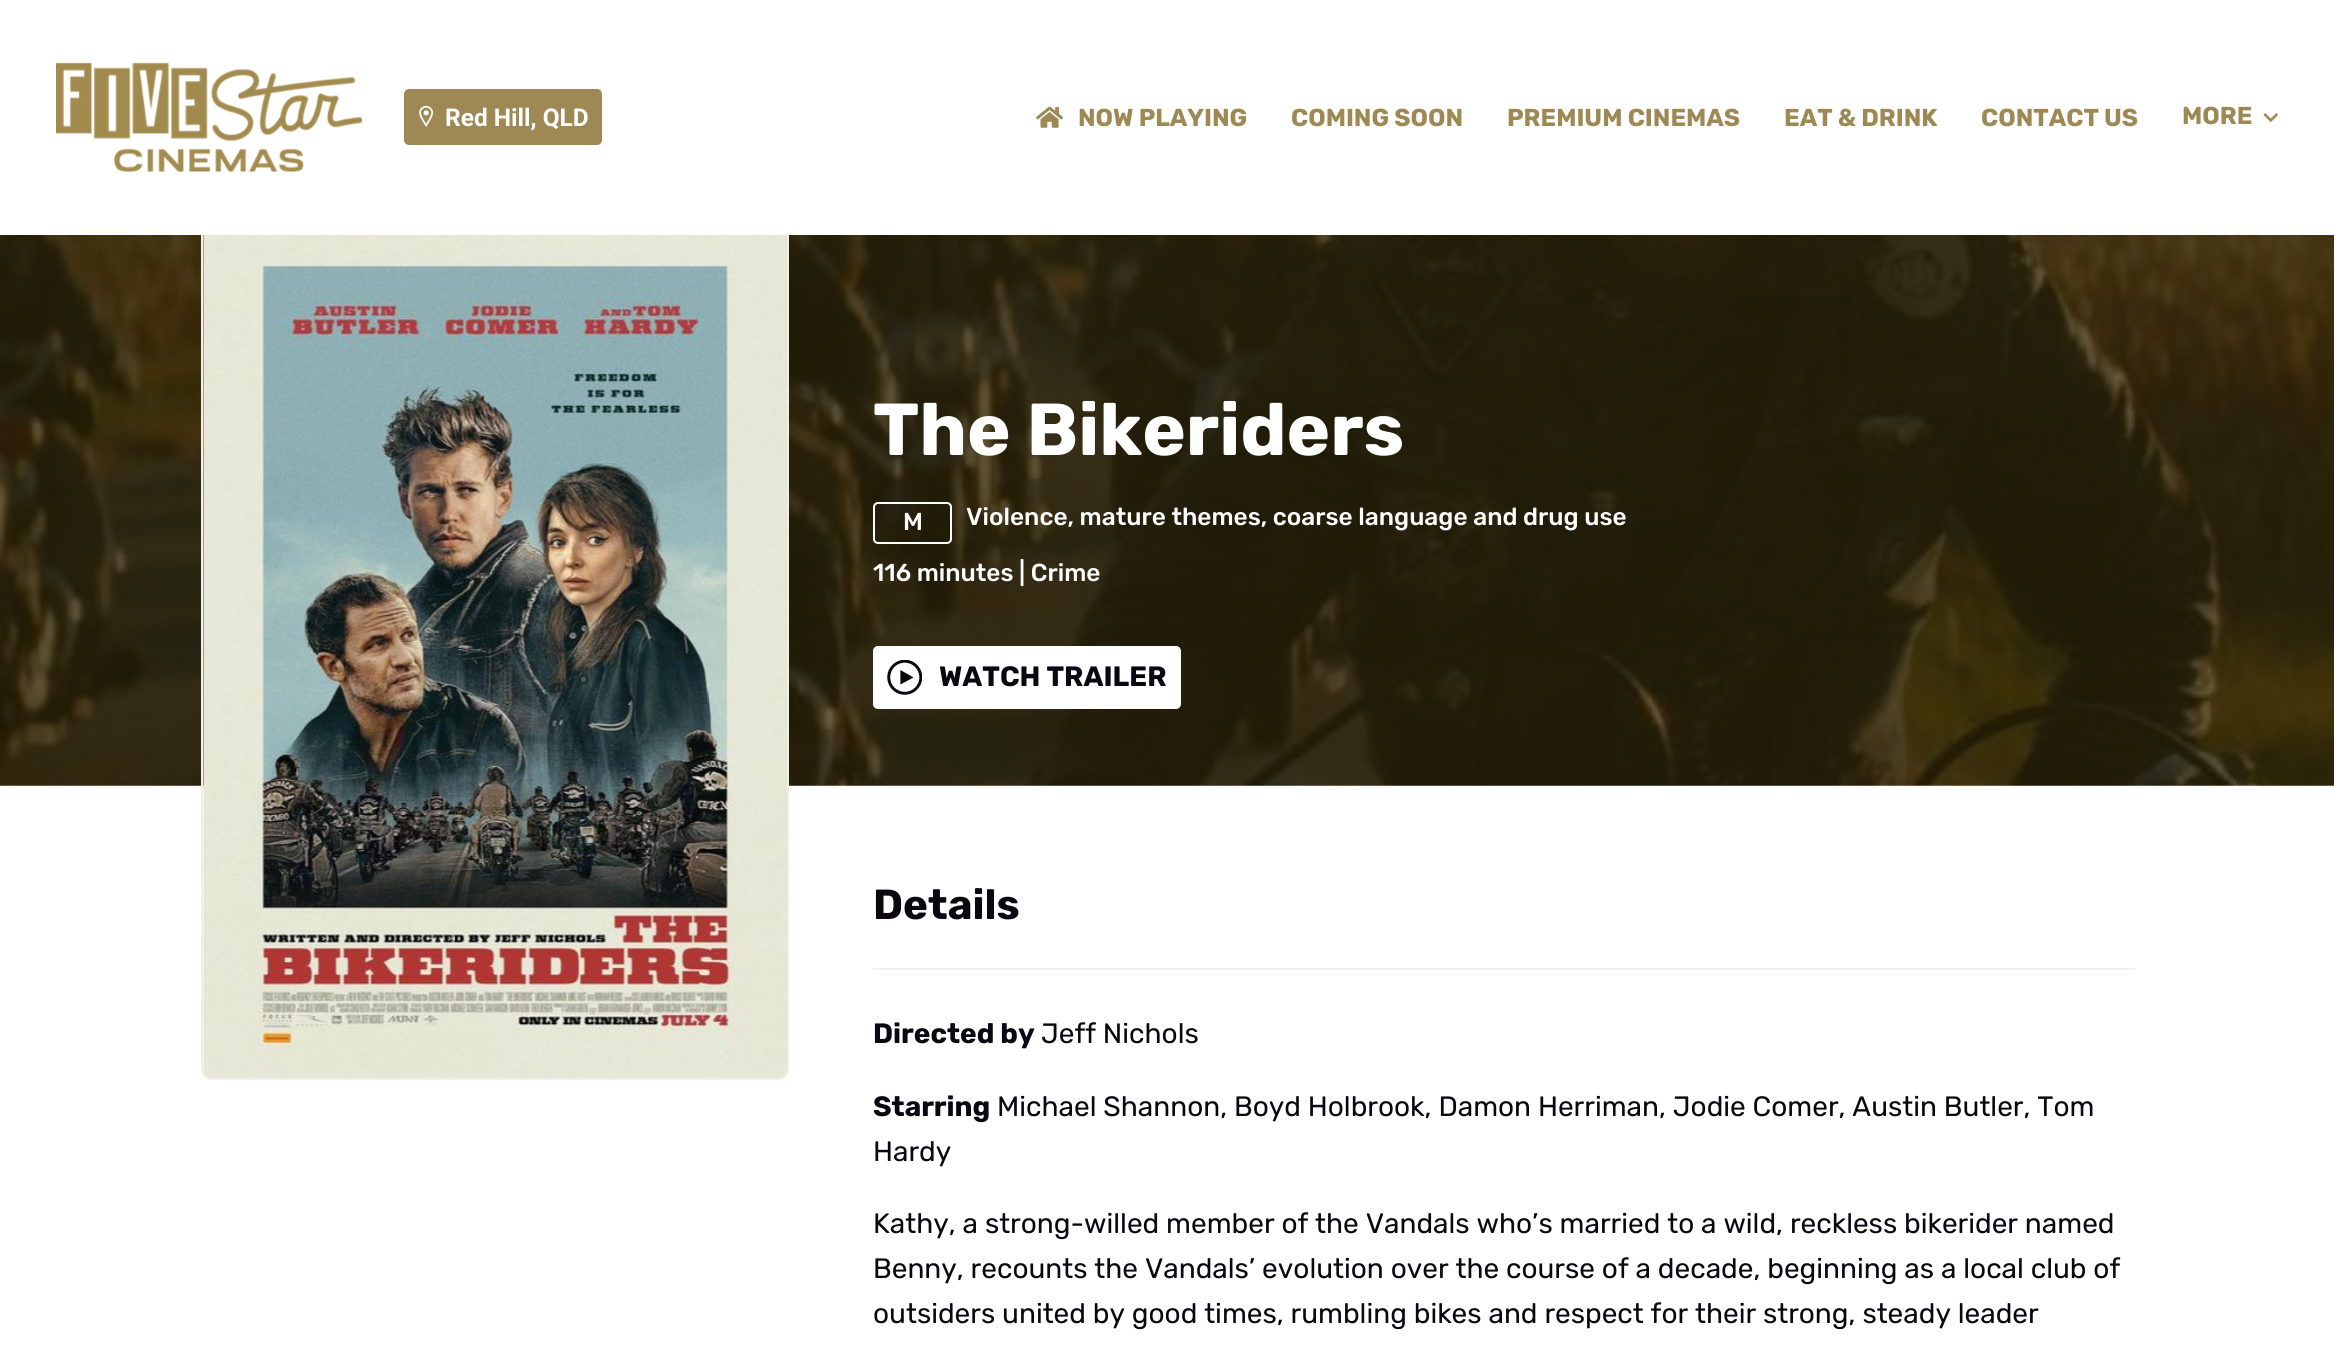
#include <cairo.h>
#include <math.h>
#include <stddef.h>


static void round_rect(cairo_t *cr, double x, double y, double w, double h, double r) {
    cairo_new_sub_path(cr);
    cairo_arc(cr, x + w - r, y + h - r, r, 0, M_PI / 2);
    cairo_arc(cr, x + r, y + h - r, r, M_PI / 2, M_PI);
    cairo_arc(cr, x + r, y + r, r, M_PI, 1.5 * M_PI);
    cairo_arc(cr, x + w - r, y + r, r, 1.5 * M_PI, 2 * M_PI);
    cairo_close_path(cr);
}

static void picture(cairo_t *cr, const char *path, double x, double y, double w, double h) {
    cairo_surface_t *image = cairo_image_surface_create_from_png(path);
    cairo_save(cr);
    cairo_set_source_surface(cr, image, x, y);
    cairo_rectangle(cr, x, y, w, h);
    cairo_fill(cr);
    cairo_restore(cr);
    cairo_surface_destroy(image);
}

int main(void) {
    cairo_surface_t *surface = cairo_image_surface_create(CAIRO_FORMAT_RGB24, 2334, 1356);
    cairo_t *cr = cairo_create(surface);
    cairo_font_options_t *options = cairo_font_options_create();
    cairo_font_options_set_hint_metrics(options, CAIRO_HINT_METRICS_OFF);
    cairo_font_options_set_hint_style(options, CAIRO_HINT_STYLE_NONE);
    cairo_set_font_options(cr, options);
    cairo_set_miter_limit(cr, 4);
    cairo_set_source_rgb(cr, 1, 1, 1);
    cairo_paint(cr);
    picture(cr, "img5.png", 0, 235, 2334, 551);
    round_rect(cr, 202, 218, 586, 861, 10);
    cairo_set_source_rgb(cr, 0.953, 0.937, 0.91);
    cairo_stroke(cr);
    cairo_set_source_rgb(cr, 1, 1, 1);
    cairo_rectangle(cr, 201, 217, 588, 18);
    cairo_fill(cr);
    picture(cr, "img1.png", 56, 62, 306, 110);
    cairo_set_source_rgb(cr, 0.62, 0.537, 0.333);
    round_rect(cr, 404, 89, 198, 56, 5);
    cairo_fill(cr);
    picture(cr, "img2.png", 419, 105, 15, 22);
    cairo_select_font_face(cr, "Roboto", CAIRO_FONT_SLANT_NORMAL, CAIRO_FONT_WEIGHT_BOLD);
    cairo_set_font_size(cr, 24.5);
    cairo_set_source_rgb(cr, 1, 1, 1);
    cairo_move_to(cr, 445, 126);
    cairo_show_text(cr, "Red Hill, QLD");
    picture(cr, "img3.png", 1036, 107, 27, 21);
    cairo_select_font_face(cr, "Rubik", CAIRO_FONT_SLANT_NORMAL, CAIRO_FONT_WEIGHT_BOLD);
    cairo_set_source_rgb(cr, 0.62, 0.537, 0.333);
    cairo_move_to(cr, 1078, 126);
    cairo_show_text(cr, "NOW PLAYING");
    cairo_move_to(cr, 1291, 126);
    cairo_show_text(cr, "COMING SOON");
    cairo_move_to(cr, 1507, 126);
    cairo_show_text(cr, "PREMIUM CINEMAS");
    cairo_move_to(cr, 1784, 126);
    cairo_show_text(cr, "EAT & DRINK");
    cairo_move_to(cr, 1981, 126);
    cairo_show_text(cr, "CONTACT US");
    cairo_move_to(cr, 2182, 124);
    cairo_show_text(cr, "MORE");
    picture(cr, "img4.png", 2263, 113, 15, 9);
    picture(cr, "img6.png", 203, 235, 585, 843);
    cairo_set_font_size(cr, 73.5);
    cairo_set_source_rgb(cr, 1, 1, 1);
    cairo_move_to(cr, 873, 455);
    cairo_show_text(cr, "The Bikeriders");
    round_rect(cr, 874, 503, 77, 40, 4);
    cairo_stroke(cr);
    cairo_select_font_face(cr, "Rubik Medium", CAIRO_FONT_SLANT_NORMAL, CAIRO_FONT_WEIGHT_NORMAL);
    cairo_set_font_size(cr, 24.5);
    cairo_move_to(cr, 903, 530);
    cairo_show_text(cr, "M");
    cairo_move_to(cr, 966, 525);
    cairo_show_text(cr, "Violence, mature themes, coarse language and drug use");
    cairo_move_to(cr, 873, 581);
    cairo_show_text(cr, "116 minutes | Crime");
    round_rect(cr, 873, 646, 308, 63, 5);
    cairo_fill(cr);
    picture(cr, "img7.png", 887, 660, 35, 35);
    cairo_select_font_face(cr, "Rubik", CAIRO_FONT_SLANT_NORMAL, CAIRO_FONT_WEIGHT_BOLD);
    cairo_set_font_size(cr, 28);
    cairo_set_source_rgb(cr, 0.043, 0.031, 0.063);
    cairo_move_to(cr, 939, 686);
    cairo_show_text(cr, "WATCH TRAILER");
    cairo_set_font_size(cr, 42);
    cairo_move_to(cr, 873, 919);
    cairo_show_text(cr, "Details");
    cairo_set_source_rgb(cr, 0.953, 0.937, 0.91);
    cairo_rectangle(cr, 873, 968, 1262, 2);
    cairo_fill(cr);
    cairo_set_font_size(cr, 28);
    cairo_set_source_rgb(cr, 0.043, 0.031, 0.063);
    cairo_move_to(cr, 873, 1043);
    cairo_show_text(cr, "Directed by");
    cairo_select_font_face(cr, "Rubik", CAIRO_FONT_SLANT_NORMAL, CAIRO_FONT_WEIGHT_NORMAL);
    cairo_move_to(cr, 1041, 1043);
    cairo_show_text(cr, "Jeff Nichols");
    cairo_select_font_face(cr, "Rubik", CAIRO_FONT_SLANT_NORMAL, CAIRO_FONT_WEIGHT_BOLD);
    cairo_move_to(cr, 873, 1116);
    cairo_show_text(cr, "Starring");
    cairo_select_font_face(cr, "Rubik", CAIRO_FONT_SLANT_NORMAL, CAIRO_FONT_WEIGHT_NORMAL);
    cairo_move_to(cr, 997, 1116);
    cairo_show_text(cr, "Michael Shannon, Boyd Holbrook, Damon Herriman, Jodie Comer, Austin Butler, Tom");
    cairo_move_to(cr, 873, 1161);
    cairo_show_text(cr, "Hardy");
    cairo_move_to(cr, 873, 1233);
    cairo_show_text(cr, "Kathy, a strong-willed member of the Vandals who’s married to a wild, reckless bikerider named");
    cairo_move_to(cr, 873, 1278);
    cairo_show_text(cr, "Benny, recounts the Vandals’ evolution over the course of a decade, beginning as a local club of");
    cairo_move_to(cr, 873, 1323);
    cairo_show_text(cr, "outsiders united by good times, rumbling bikes and respect for their strong, steady leader");
    cairo_surface_write_to_png(surface, "page.png");
    cairo_font_options_destroy(options);
    cairo_destroy(cr);
    cairo_surface_destroy(surface);
    return 0;
}
